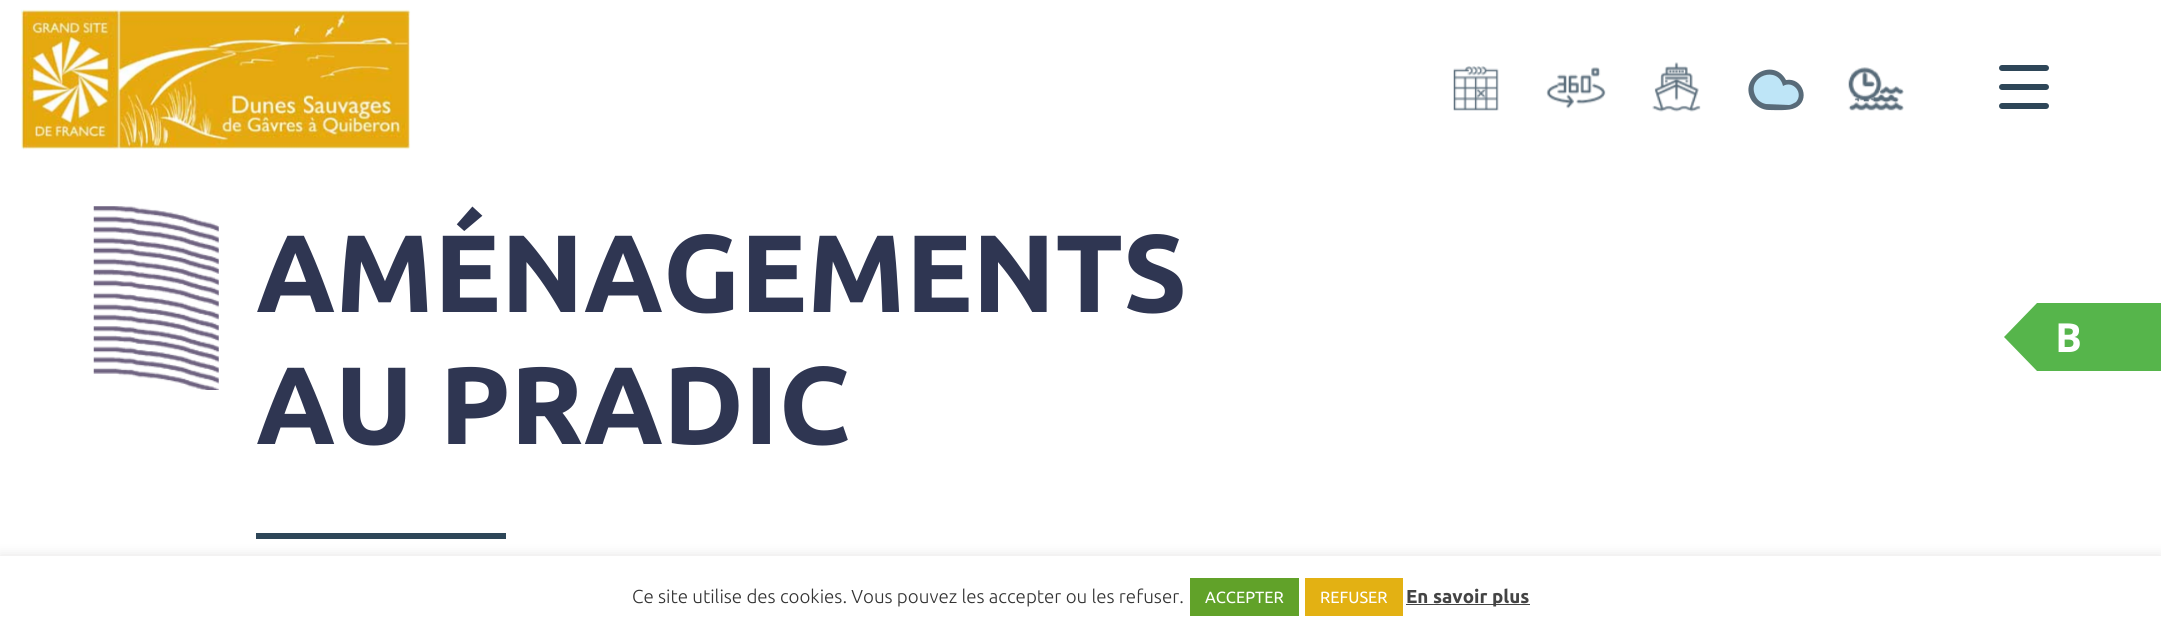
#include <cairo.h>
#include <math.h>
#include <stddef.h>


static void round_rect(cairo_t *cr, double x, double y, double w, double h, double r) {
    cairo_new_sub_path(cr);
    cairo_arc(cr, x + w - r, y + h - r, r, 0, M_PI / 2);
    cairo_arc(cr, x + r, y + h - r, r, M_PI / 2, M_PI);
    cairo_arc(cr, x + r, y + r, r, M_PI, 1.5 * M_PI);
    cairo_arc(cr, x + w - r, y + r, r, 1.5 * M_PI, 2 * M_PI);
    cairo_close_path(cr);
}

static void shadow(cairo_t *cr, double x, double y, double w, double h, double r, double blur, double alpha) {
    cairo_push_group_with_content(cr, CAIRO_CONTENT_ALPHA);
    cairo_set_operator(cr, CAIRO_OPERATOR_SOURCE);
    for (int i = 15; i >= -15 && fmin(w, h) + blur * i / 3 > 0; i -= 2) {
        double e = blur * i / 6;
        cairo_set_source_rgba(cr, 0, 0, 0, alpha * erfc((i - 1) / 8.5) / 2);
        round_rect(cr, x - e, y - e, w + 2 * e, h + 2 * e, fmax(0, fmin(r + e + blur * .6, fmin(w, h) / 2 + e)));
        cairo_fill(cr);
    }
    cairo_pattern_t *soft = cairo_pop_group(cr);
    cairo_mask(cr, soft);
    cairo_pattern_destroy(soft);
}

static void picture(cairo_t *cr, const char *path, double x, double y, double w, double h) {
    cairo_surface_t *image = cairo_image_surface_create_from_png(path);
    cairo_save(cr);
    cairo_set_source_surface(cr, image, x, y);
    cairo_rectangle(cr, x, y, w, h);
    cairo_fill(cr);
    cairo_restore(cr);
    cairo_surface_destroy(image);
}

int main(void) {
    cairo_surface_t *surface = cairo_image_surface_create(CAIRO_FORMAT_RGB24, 2161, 631);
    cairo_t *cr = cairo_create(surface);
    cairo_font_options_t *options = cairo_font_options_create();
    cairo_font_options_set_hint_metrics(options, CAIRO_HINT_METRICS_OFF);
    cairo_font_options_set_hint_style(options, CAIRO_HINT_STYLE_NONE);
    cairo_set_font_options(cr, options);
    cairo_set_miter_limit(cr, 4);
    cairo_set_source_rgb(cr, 1, 1, 1);
    cairo_paint(cr);
    picture(cr, "img1.png", 21, 9, 390, 141);
    picture(cr, "img2.png", 1453, 66, 46, 45);
    picture(cr, "img3.png", 1546, 67, 60, 42);
    picture(cr, "img4.png", 1652, 62, 49, 50);
    cairo_set_source_rgb(cr, 0.345, 0.42, 0.475);
    cairo_new_path(cr);
    cairo_move_to(cr, 1769, 110);
    cairo_curve_to(cr, 1762, 110, 1756, 106, 1752, 101);
    cairo_curve_to(cr, 1737, 78, 1773, 56, 1786, 80);
    cairo_curve_to(cr, 1803, 77, 1811, 101, 1795, 108);
    cairo_curve_to(cr, 1789, 111, 1775, 110, 1769, 110);
    cairo_close_path(cr);
    cairo_fill(cr);
    cairo_set_source_rgb(cr, 0.745, 0.898, 0.965);
    cairo_new_path(cr);
    cairo_move_to(cr, 1789, 105);
    cairo_curve_to(cr, 1791, 105, 1794, 103, 1796, 102);
    cairo_curve_to(cr, 1804, 93, 1793, 80, 1783, 86);
    cairo_curve_to(cr, 1778, 65, 1747, 76, 1755, 95);
    cairo_curve_to(cr, 1757, 100, 1761, 103, 1766, 104);
    cairo_close_path(cr);
    cairo_fill(cr);
    picture(cr, "img5.png", 1848, 67, 56, 44);
    cairo_set_source_rgb(cr, 0.18, 0.275, 0.345);
    round_rect(cr, 1999, 65, 50, 6, 3);
    cairo_fill(cr);
    round_rect(cr, 1999, 84, 50, 6, 3);
    cairo_fill(cr);
    round_rect(cr, 1999, 103, 50, 6, 3);
    cairo_fill(cr);
    picture(cr, "img6.png", 93, 206, 126, 184);
    cairo_select_font_face(cr, "Ubuntu", CAIRO_FONT_SLANT_NORMAL, CAIRO_FONT_WEIGHT_BOLD);
    cairo_set_font_size(cr, 110);
    cairo_set_source_rgb(cr, 0.184, 0.212, 0.322);
    cairo_move_to(cr, 256, 312);
    cairo_show_text(cr, "AMÉNAGEMENTS");
    cairo_move_to(cr, 256, 444);
    cairo_show_text(cr, "AU PRADIC");
    cairo_set_source_rgb(cr, 0.18, 0.275, 0.345);
    cairo_rectangle(cr, 256, 533, 250, 6);
    cairo_fill(cr);
    cairo_set_source_rgb(cr, 0.337, 0.71, 0.294);
    cairo_new_path(cr);
    cairo_move_to(cr, 2004, 337);
    cairo_line_to(cr, 2037, 303);
    cairo_line_to(cr, 2161, 303);
    cairo_line_to(cr, 2161, 371);
    cairo_line_to(cr, 2037, 371);
    cairo_close_path(cr);
    cairo_fill(cr);
    cairo_select_font_face(cr, "Open Sans", CAIRO_FONT_SLANT_NORMAL, CAIRO_FONT_WEIGHT_BOLD);
    cairo_set_font_size(cr, 40);
    cairo_set_source_rgb(cr, 1, 1, 1);
    cairo_move_to(cr, 2055, 352);
    cairo_show_text(cr, "B");
    cairo_set_source_rgb(cr, 0.675, 0.671, 0.671);
    shadow(cr, 0, 555, 2161, 75, 0, 6, 0.3);
    cairo_set_source_rgb(cr, 1, 1, 1);
    cairo_rectangle(cr, 0, 556, 2161, 75);
    cairo_fill(cr);
    cairo_select_font_face(cr, "Ubuntu Light", CAIRO_FONT_SLANT_NORMAL, CAIRO_FONT_WEIGHT_NORMAL);
    cairo_set_font_size(cr, 18.75);
    cairo_set_source_rgb(cr, 0.2, 0.2, 0.2);
    cairo_move_to(cr, 632, 603);
    cairo_show_text(cr, "Ce site utilise des cookies. Vous pouvez les accepter ou les refuser.");
    cairo_set_source_rgb(cr, 0.38, 0.635, 0.161);
    cairo_rectangle(cr, 1190, 578, 109, 38);
    cairo_fill(cr);
    cairo_select_font_face(cr, "Ubuntu", CAIRO_FONT_SLANT_NORMAL, CAIRO_FONT_WEIGHT_NORMAL);
    cairo_set_font_size(cr, 16.25);
    cairo_set_source_rgb(cr, 1, 1, 1);
    cairo_move_to(cr, 1205, 603);
    cairo_show_text(cr, "ACCEPTER");
    cairo_set_source_rgb(cr, 0.89, 0.694, 0.078);
    cairo_rectangle(cr, 1305, 578, 98, 38);
    cairo_fill(cr);
    cairo_set_source_rgb(cr, 1, 1, 1);
    cairo_move_to(cr, 1320, 603);
    cairo_show_text(cr, "REFUSER");
    cairo_set_source_rgb(cr, 0.267, 0.267, 0.267);
    cairo_rectangle(cr, 1406, 604, 124, 1);
    cairo_fill(cr);
    cairo_select_font_face(cr, "Ubuntu", CAIRO_FONT_SLANT_NORMAL, CAIRO_FONT_WEIGHT_BOLD);
    cairo_set_font_size(cr, 18.75);
    cairo_move_to(cr, 1406, 603);
    cairo_show_text(cr, "En savoir plus");
    cairo_surface_write_to_png(surface, "page.png");
    cairo_font_options_destroy(options);
    cairo_destroy(cr);
    cairo_surface_destroy(surface);
    return 0;
}
